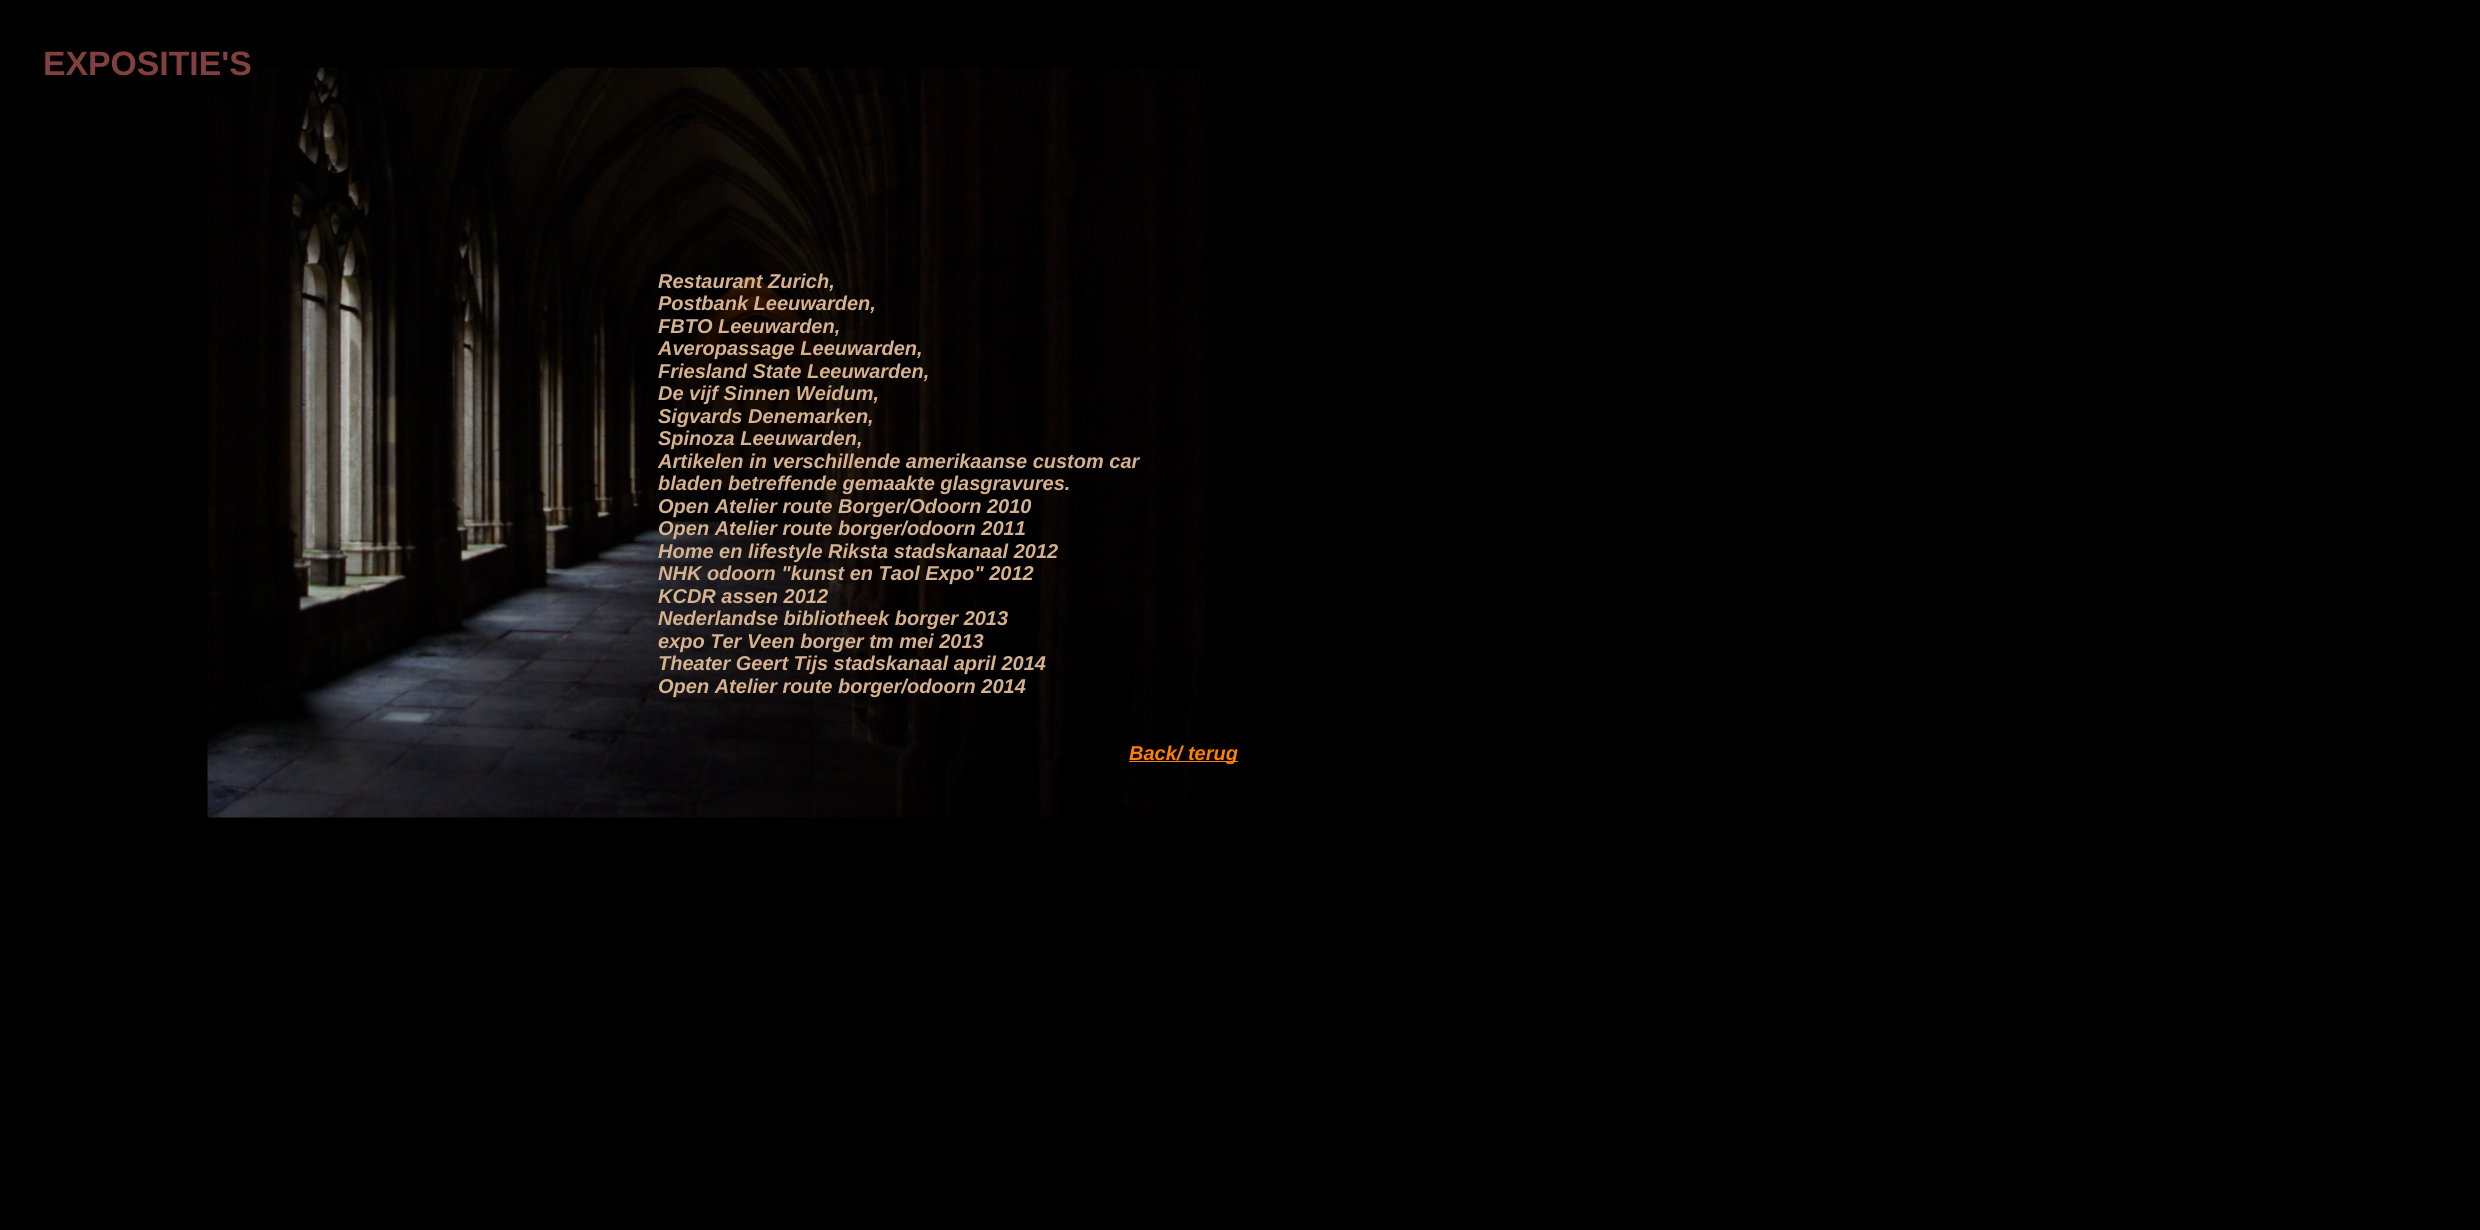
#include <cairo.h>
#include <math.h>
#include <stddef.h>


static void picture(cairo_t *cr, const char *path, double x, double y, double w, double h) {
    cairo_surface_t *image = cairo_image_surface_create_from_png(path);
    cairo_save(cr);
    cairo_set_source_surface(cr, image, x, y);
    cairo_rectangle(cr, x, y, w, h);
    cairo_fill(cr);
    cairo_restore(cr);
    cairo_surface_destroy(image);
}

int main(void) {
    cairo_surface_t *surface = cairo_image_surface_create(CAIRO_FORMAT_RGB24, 2480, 1230);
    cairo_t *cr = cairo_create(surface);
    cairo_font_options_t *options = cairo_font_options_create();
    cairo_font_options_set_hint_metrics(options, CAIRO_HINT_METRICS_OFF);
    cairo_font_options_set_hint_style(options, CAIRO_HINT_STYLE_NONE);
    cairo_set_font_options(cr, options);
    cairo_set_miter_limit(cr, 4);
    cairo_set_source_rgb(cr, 0, 0, 0);
    cairo_paint(cr);
    picture(cr, "img1.png", 207, 67, 1001, 751);
    cairo_select_font_face(cr, "Liberation Sans", CAIRO_FONT_SLANT_NORMAL, CAIRO_FONT_WEIGHT_BOLD);
    cairo_set_font_size(cr, 33.75);
    cairo_set_source_rgb(cr, 0.502, 0.251, 0.251);
    cairo_move_to(cr, 43, 75);
    cairo_show_text(cr, "EXPOSITIE'S");
    cairo_select_font_face(cr, "Liberation Sans", CAIRO_FONT_SLANT_ITALIC, CAIRO_FONT_WEIGHT_BOLD);
    cairo_set_font_size(cr, 20);
    cairo_set_source_rgb(cr, 0.835, 0.694, 0.557);
    cairo_move_to(cr, 658, 288);
    cairo_show_text(cr, "Restaurant Zurich,");
    cairo_move_to(cr, 658, 310);
    cairo_show_text(cr, "Postbank Leeuwarden,");
    cairo_move_to(cr, 658, 333);
    cairo_show_text(cr, "FBTO Leeuwarden,");
    cairo_move_to(cr, 658, 355);
    cairo_show_text(cr, "Averopassage Leeuwarden,");
    cairo_move_to(cr, 658, 378);
    cairo_show_text(cr, "Friesland State Leeuwarden,");
    cairo_move_to(cr, 658, 400);
    cairo_show_text(cr, "De vijf Sinnen Weidum,");
    cairo_move_to(cr, 658, 423);
    cairo_show_text(cr, "Sigvards Denemarken,");
    cairo_move_to(cr, 658, 445);
    cairo_show_text(cr, "Spinoza Leeuwarden,");
    cairo_move_to(cr, 658, 468);
    cairo_show_text(cr, "Artikelen in verschillende amerikaanse custom car");
    cairo_move_to(cr, 658, 490);
    cairo_show_text(cr, "bladen betreffende gemaakte glasgravures.");
    cairo_move_to(cr, 658, 513);
    cairo_show_text(cr, "Open Atelier route Borger/Odoorn 2010");
    cairo_move_to(cr, 658, 535);
    cairo_show_text(cr, "Open Atelier route borger/odoorn 2011");
    cairo_move_to(cr, 658, 558);
    cairo_show_text(cr, "Home en lifestyle Riksta stadskanaal 2012");
    cairo_move_to(cr, 658, 580);
    cairo_show_text(cr, "NHK odoorn \"kunst en Taol Expo\" 2012");
    cairo_move_to(cr, 658, 603);
    cairo_show_text(cr, "KCDR assen 2012");
    cairo_move_to(cr, 658, 625);
    cairo_show_text(cr, "Nederlandse bibliotheek borger 2013");
    cairo_move_to(cr, 658, 648);
    cairo_show_text(cr, "expo Ter Veen borger tm mei 2013");
    cairo_move_to(cr, 658, 670);
    cairo_show_text(cr, "Theater Geert Tijs stadskanaal april 2014");
    cairo_move_to(cr, 658, 693);
    cairo_show_text(cr, "Open Atelier route borger/odoorn 2014");
    cairo_set_source_rgb(cr, 1, 0.502, 0);
    cairo_rectangle(cr, 1129, 761, 109, 1);
    cairo_fill(cr);
    cairo_move_to(cr, 1129, 760);
    cairo_show_text(cr, "Back/ terug");
    cairo_surface_write_to_png(surface, "page.png");
    cairo_font_options_destroy(options);
    cairo_destroy(cr);
    cairo_surface_destroy(surface);
    return 0;
}
